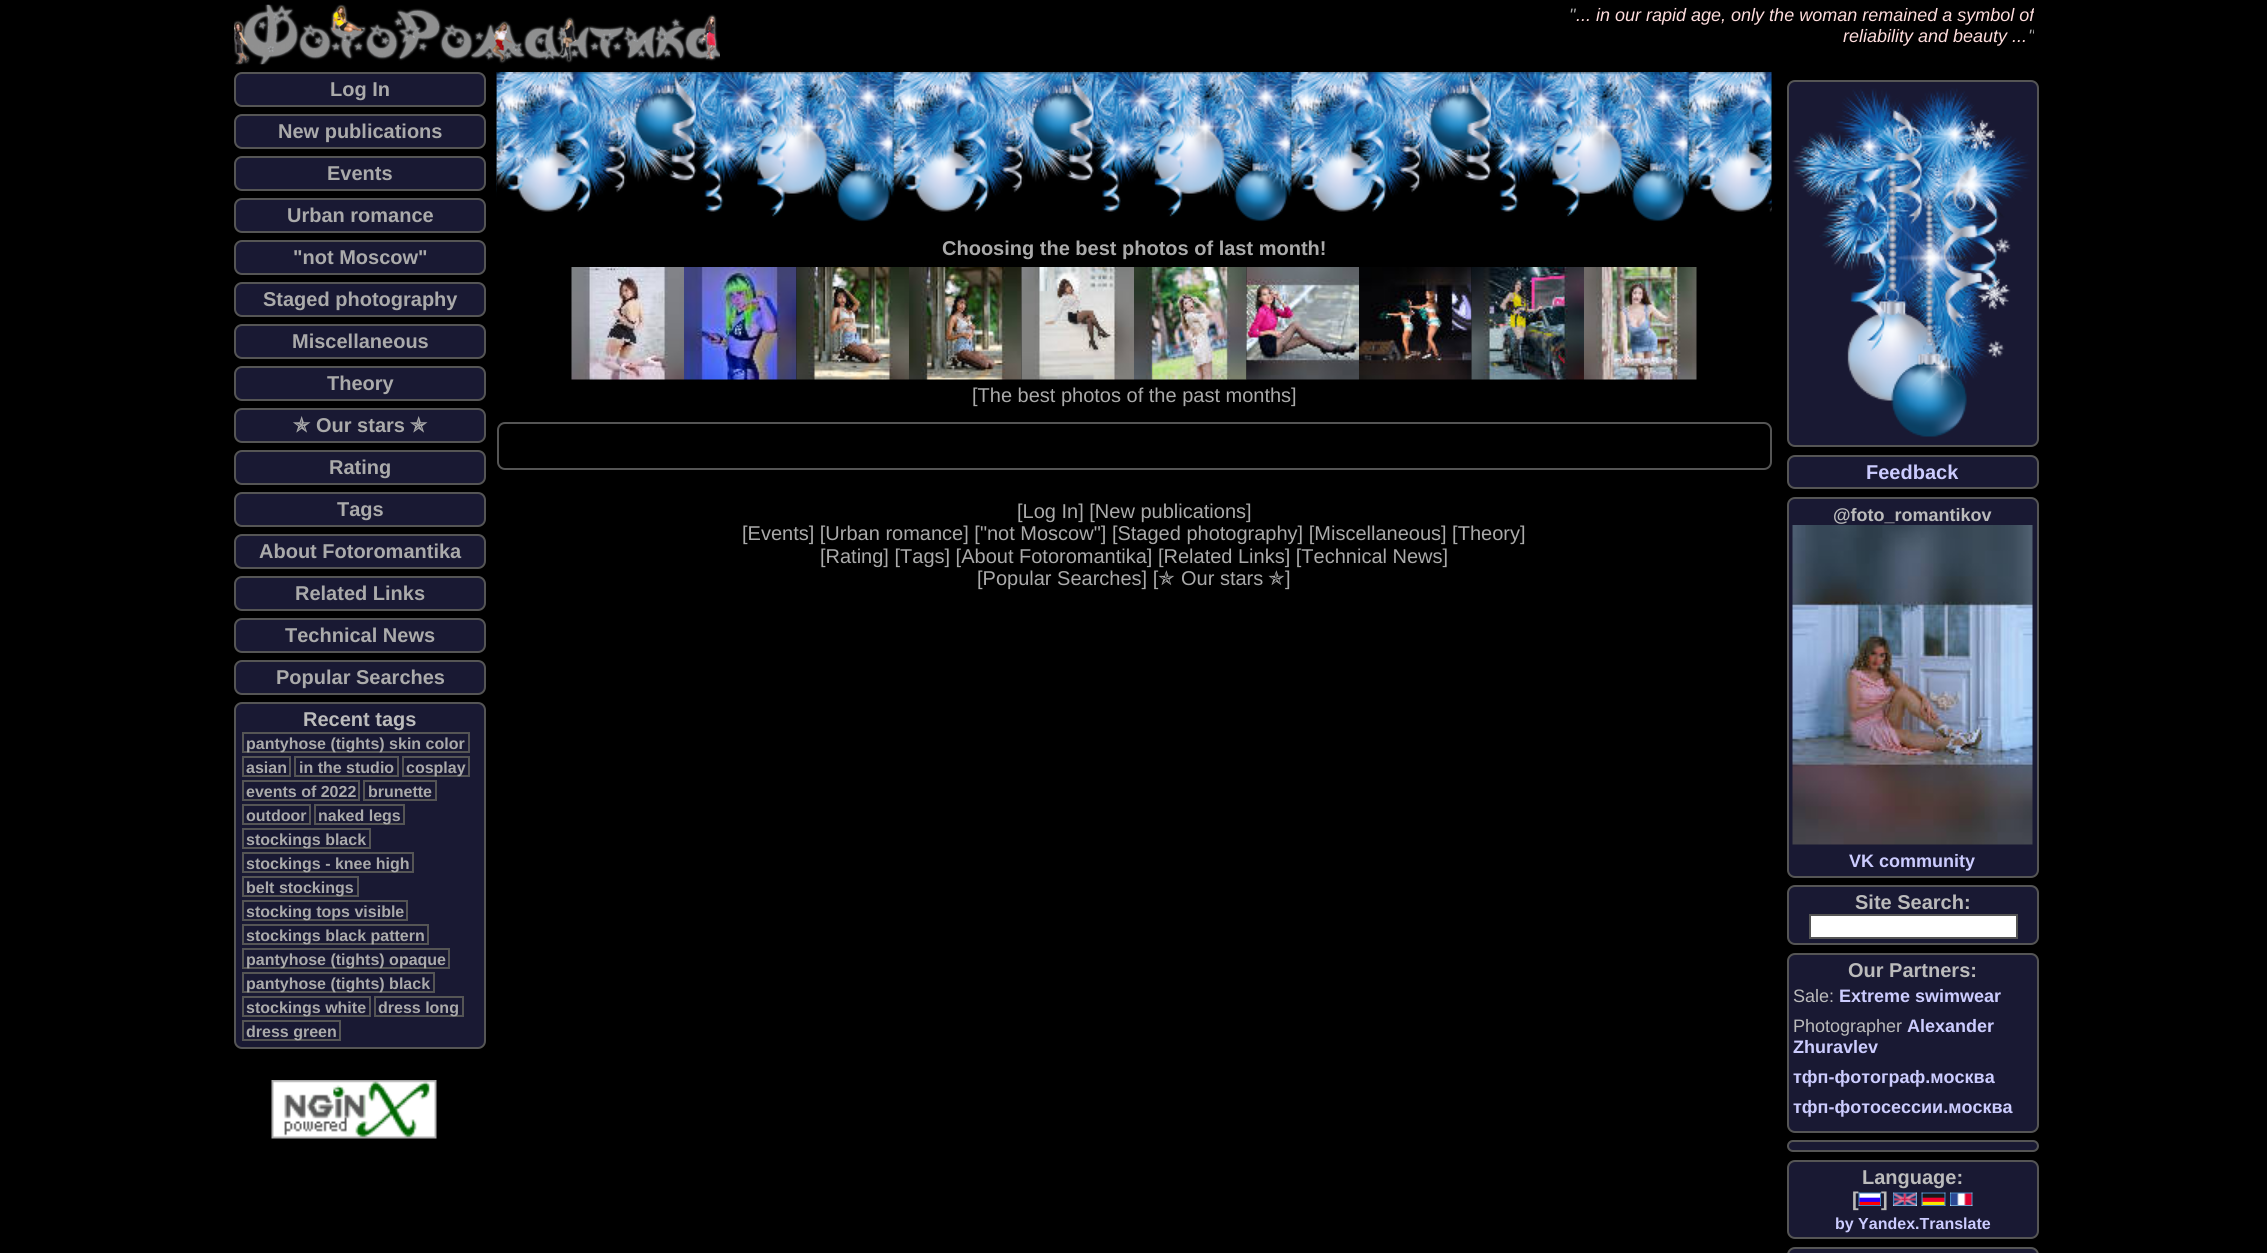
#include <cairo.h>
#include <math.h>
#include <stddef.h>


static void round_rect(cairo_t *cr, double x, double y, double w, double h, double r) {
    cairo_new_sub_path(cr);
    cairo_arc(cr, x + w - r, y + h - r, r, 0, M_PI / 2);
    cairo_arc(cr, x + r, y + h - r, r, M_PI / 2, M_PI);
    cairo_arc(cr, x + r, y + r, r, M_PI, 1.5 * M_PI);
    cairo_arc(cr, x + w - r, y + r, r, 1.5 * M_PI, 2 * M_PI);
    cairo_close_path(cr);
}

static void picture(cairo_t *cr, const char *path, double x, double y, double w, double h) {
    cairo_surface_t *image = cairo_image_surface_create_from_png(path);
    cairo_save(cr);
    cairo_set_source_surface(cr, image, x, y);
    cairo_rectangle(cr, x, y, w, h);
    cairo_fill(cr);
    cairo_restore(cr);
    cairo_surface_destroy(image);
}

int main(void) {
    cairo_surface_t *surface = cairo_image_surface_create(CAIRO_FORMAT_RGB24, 2267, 1253);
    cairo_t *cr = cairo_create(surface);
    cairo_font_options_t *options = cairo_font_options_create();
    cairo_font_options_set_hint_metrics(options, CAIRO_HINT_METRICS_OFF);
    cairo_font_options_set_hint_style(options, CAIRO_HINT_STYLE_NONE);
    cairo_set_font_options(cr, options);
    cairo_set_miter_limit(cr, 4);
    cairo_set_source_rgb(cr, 0, 0, 0);
    cairo_paint(cr);
    picture(cr, "img1.png", 234, 4, 486, 61);
    cairo_select_font_face(cr, "Liberation Sans", CAIRO_FONT_SLANT_ITALIC, CAIRO_FONT_WEIGHT_NORMAL);
    cairo_set_font_size(cr, 18);
    cairo_set_source_rgb(cr, 0.667, 0.667, 0.667);
    cairo_move_to(cr, 1569, 21);
    cairo_show_text(cr, "\"");
    cairo_save(cr);
    cairo_rectangle(cr, 1509, 5, 525, 60);
    cairo_clip(cr);
    cairo_set_source_rgb(cr, 1, 0.867, 0.867);
    cairo_move_to(cr, 1576, 21);
    cairo_show_text(cr, "... in our rapid age, only the woman remained a symbol of");
    cairo_restore(cr);
    cairo_set_source_rgb(cr, 1, 0.867, 0.867);
    cairo_move_to(cr, 1843, 42);
    cairo_show_text(cr, "reliability and beauty ...");
    cairo_save(cr);
    cairo_rectangle(cr, 1509, 5, 525, 60);
    cairo_clip(cr);
    cairo_set_source_rgb(cr, 0.667, 0.667, 0.667);
    cairo_move_to(cr, 2028, 42);
    cairo_show_text(cr, "\"");
    cairo_restore(cr);
    cairo_set_source_rgb(cr, 0.098, 0.098, 0.2);
    round_rect(cr, 235, 73, 250, 33, 7);
    cairo_fill_preserve(cr);
    cairo_set_source_rgb(cr, 0.333, 0.333, 0.333);
    cairo_stroke(cr);
    cairo_select_font_face(cr, "Liberation Sans", CAIRO_FONT_SLANT_NORMAL, CAIRO_FONT_WEIGHT_BOLD);
    cairo_set_font_size(cr, 20);
    cairo_set_source_rgb(cr, 0.667, 0.667, 0.667);
    cairo_move_to(cr, 330, 96);
    cairo_show_text(cr, "Log In");
    cairo_set_source_rgb(cr, 0.098, 0.098, 0.2);
    round_rect(cr, 235, 115, 250, 33, 7);
    cairo_fill_preserve(cr);
    cairo_set_source_rgb(cr, 0.333, 0.333, 0.333);
    cairo_stroke(cr);
    cairo_set_source_rgb(cr, 0.667, 0.667, 0.667);
    cairo_move_to(cr, 278, 138);
    cairo_show_text(cr, "New publications");
    cairo_set_source_rgb(cr, 0.098, 0.098, 0.2);
    round_rect(cr, 235, 157, 250, 33, 7);
    cairo_fill_preserve(cr);
    cairo_set_source_rgb(cr, 0.333, 0.333, 0.333);
    cairo_stroke(cr);
    cairo_set_source_rgb(cr, 0.667, 0.667, 0.667);
    cairo_move_to(cr, 327, 180);
    cairo_show_text(cr, "Events");
    cairo_set_source_rgb(cr, 0.098, 0.098, 0.2);
    round_rect(cr, 235, 199, 250, 33, 7);
    cairo_fill_preserve(cr);
    cairo_set_source_rgb(cr, 0.333, 0.333, 0.333);
    cairo_stroke(cr);
    cairo_set_source_rgb(cr, 0.667, 0.667, 0.667);
    cairo_move_to(cr, 287, 222);
    cairo_show_text(cr, "Urban romance");
    cairo_set_source_rgb(cr, 0.098, 0.098, 0.2);
    round_rect(cr, 235, 241, 250, 33, 7);
    cairo_fill_preserve(cr);
    cairo_set_source_rgb(cr, 0.333, 0.333, 0.333);
    cairo_stroke(cr);
    cairo_set_source_rgb(cr, 0.667, 0.667, 0.667);
    cairo_move_to(cr, 293, 264);
    cairo_show_text(cr, "\"not Moscow\"");
    cairo_set_source_rgb(cr, 0.098, 0.098, 0.2);
    round_rect(cr, 235, 283, 250, 33, 7);
    cairo_fill_preserve(cr);
    cairo_set_source_rgb(cr, 0.333, 0.333, 0.333);
    cairo_stroke(cr);
    cairo_set_source_rgb(cr, 0.667, 0.667, 0.667);
    cairo_move_to(cr, 263, 306);
    cairo_show_text(cr, "Staged photography");
    cairo_set_source_rgb(cr, 0.098, 0.098, 0.2);
    round_rect(cr, 235, 325, 250, 33, 7);
    cairo_fill_preserve(cr);
    cairo_set_source_rgb(cr, 0.333, 0.333, 0.333);
    cairo_stroke(cr);
    cairo_set_source_rgb(cr, 0.667, 0.667, 0.667);
    cairo_move_to(cr, 292, 348);
    cairo_show_text(cr, "Miscellaneous");
    cairo_set_source_rgb(cr, 0.098, 0.098, 0.2);
    round_rect(cr, 235, 367, 250, 33, 7);
    cairo_fill_preserve(cr);
    cairo_set_source_rgb(cr, 0.333, 0.333, 0.333);
    cairo_stroke(cr);
    cairo_set_source_rgb(cr, 0.667, 0.667, 0.667);
    cairo_move_to(cr, 327, 390);
    cairo_show_text(cr, "Theory");
    cairo_set_source_rgb(cr, 0.098, 0.098, 0.2);
    round_rect(cr, 235, 409, 250, 33, 7);
    cairo_fill_preserve(cr);
    cairo_set_source_rgb(cr, 0.333, 0.333, 0.333);
    cairo_stroke(cr);
    cairo_select_font_face(cr, "DejaVu Sans", CAIRO_FONT_SLANT_NORMAL, CAIRO_FONT_WEIGHT_BOLD);
    cairo_set_source_rgb(cr, 0.667, 0.667, 0.667);
    cairo_move_to(cr, 293, 432);
    cairo_show_text(cr, "✯");
    cairo_select_font_face(cr, "Liberation Sans", CAIRO_FONT_SLANT_NORMAL, CAIRO_FONT_WEIGHT_BOLD);
    cairo_move_to(cr, 316, 432);
    cairo_show_text(cr, "Our stars");
    cairo_select_font_face(cr, "DejaVu Sans", CAIRO_FONT_SLANT_NORMAL, CAIRO_FONT_WEIGHT_BOLD);
    cairo_move_to(cr, 410, 432);
    cairo_show_text(cr, "✯");
    cairo_set_source_rgb(cr, 0.098, 0.098, 0.2);
    round_rect(cr, 235, 451, 250, 33, 7);
    cairo_fill_preserve(cr);
    cairo_set_source_rgb(cr, 0.333, 0.333, 0.333);
    cairo_stroke(cr);
    cairo_select_font_face(cr, "Liberation Sans", CAIRO_FONT_SLANT_NORMAL, CAIRO_FONT_WEIGHT_BOLD);
    cairo_set_source_rgb(cr, 0.667, 0.667, 0.667);
    cairo_move_to(cr, 329, 474);
    cairo_show_text(cr, "Rating");
    cairo_set_source_rgb(cr, 0.098, 0.098, 0.2);
    round_rect(cr, 235, 493, 250, 33, 7);
    cairo_fill_preserve(cr);
    cairo_set_source_rgb(cr, 0.333, 0.333, 0.333);
    cairo_stroke(cr);
    cairo_set_source_rgb(cr, 0.667, 0.667, 0.667);
    cairo_move_to(cr, 337, 516);
    cairo_show_text(cr, "Tags");
    cairo_set_source_rgb(cr, 0.098, 0.098, 0.2);
    round_rect(cr, 235, 535, 250, 33, 7);
    cairo_fill_preserve(cr);
    cairo_set_source_rgb(cr, 0.333, 0.333, 0.333);
    cairo_stroke(cr);
    cairo_set_source_rgb(cr, 0.667, 0.667, 0.667);
    cairo_move_to(cr, 259, 558);
    cairo_show_text(cr, "About Fotoromantika");
    cairo_set_source_rgb(cr, 0.098, 0.098, 0.2);
    round_rect(cr, 235, 577, 250, 33, 7);
    cairo_fill_preserve(cr);
    cairo_set_source_rgb(cr, 0.333, 0.333, 0.333);
    cairo_stroke(cr);
    cairo_set_source_rgb(cr, 0.667, 0.667, 0.667);
    cairo_move_to(cr, 295, 600);
    cairo_show_text(cr, "Related Links");
    cairo_set_source_rgb(cr, 0.098, 0.098, 0.2);
    round_rect(cr, 235, 619, 250, 33, 7);
    cairo_fill_preserve(cr);
    cairo_set_source_rgb(cr, 0.333, 0.333, 0.333);
    cairo_stroke(cr);
    cairo_set_source_rgb(cr, 0.667, 0.667, 0.667);
    cairo_move_to(cr, 285, 642);
    cairo_show_text(cr, "Technical News");
    cairo_set_source_rgb(cr, 0.098, 0.098, 0.2);
    round_rect(cr, 235, 661, 250, 33, 7);
    cairo_fill_preserve(cr);
    cairo_set_source_rgb(cr, 0.333, 0.333, 0.333);
    cairo_stroke(cr);
    cairo_set_source_rgb(cr, 0.667, 0.667, 0.667);
    cairo_move_to(cr, 276, 684);
    cairo_show_text(cr, "Popular Searches");
    cairo_set_source_rgb(cr, 0.098, 0.098, 0.2);
    round_rect(cr, 235, 703, 250, 345, 7);
    cairo_fill_preserve(cr);
    cairo_set_source_rgb(cr, 0.333, 0.333, 0.333);
    cairo_stroke(cr);
    cairo_set_source_rgb(cr, 0.733, 0.733, 0.733);
    cairo_move_to(cr, 303, 726);
    cairo_show_text(cr, "Recent tags");
    cairo_rectangle(cr, 243, 733, 226, 19);
    cairo_set_source_rgb(cr, 0.333, 0.333, 0.333);
    cairo_stroke(cr);
    cairo_set_font_size(cr, 16);
    cairo_set_source_rgb(cr, 0.667, 0.667, 0.667);
    cairo_move_to(cr, 246, 749);
    cairo_show_text(cr, "pantyhose (tights) skin color");
    cairo_rectangle(cr, 243, 757, 47, 19);
    cairo_set_source_rgb(cr, 0.333, 0.333, 0.333);
    cairo_stroke(cr);
    cairo_set_source_rgb(cr, 0.667, 0.667, 0.667);
    cairo_move_to(cr, 246, 773);
    cairo_show_text(cr, "asian");
    cairo_rectangle(cr, 295, 757, 103, 19);
    cairo_set_source_rgb(cr, 0.333, 0.333, 0.333);
    cairo_stroke(cr);
    cairo_set_source_rgb(cr, 0.667, 0.667, 0.667);
    cairo_move_to(cr, 299, 773);
    cairo_show_text(cr, "in the studio");
    cairo_rectangle(cr, 403, 757, 66, 19);
    cairo_set_source_rgb(cr, 0.333, 0.333, 0.333);
    cairo_stroke(cr);
    cairo_set_source_rgb(cr, 0.667, 0.667, 0.667);
    cairo_move_to(cr, 406, 773);
    cairo_show_text(cr, "cosplay");
    cairo_rectangle(cr, 243, 781, 116, 19);
    cairo_set_source_rgb(cr, 0.333, 0.333, 0.333);
    cairo_stroke(cr);
    cairo_set_source_rgb(cr, 0.667, 0.667, 0.667);
    cairo_move_to(cr, 246, 797);
    cairo_show_text(cr, "events of 2022");
    cairo_rectangle(cr, 364, 781, 72, 19);
    cairo_set_source_rgb(cr, 0.333, 0.333, 0.333);
    cairo_stroke(cr);
    cairo_set_source_rgb(cr, 0.667, 0.667, 0.667);
    cairo_move_to(cr, 368, 797);
    cairo_show_text(cr, "brunette");
    cairo_rectangle(cr, 243, 805, 67, 19);
    cairo_set_source_rgb(cr, 0.333, 0.333, 0.333);
    cairo_stroke(cr);
    cairo_set_source_rgb(cr, 0.667, 0.667, 0.667);
    cairo_move_to(cr, 246, 821);
    cairo_show_text(cr, "outdoor");
    cairo_rectangle(cr, 315, 805, 89, 19);
    cairo_set_source_rgb(cr, 0.333, 0.333, 0.333);
    cairo_stroke(cr);
    cairo_set_source_rgb(cr, 0.667, 0.667, 0.667);
    cairo_move_to(cr, 318, 821);
    cairo_show_text(cr, "naked legs");
    cairo_rectangle(cr, 243, 829, 127, 19);
    cairo_set_source_rgb(cr, 0.333, 0.333, 0.333);
    cairo_stroke(cr);
    cairo_set_source_rgb(cr, 0.667, 0.667, 0.667);
    cairo_move_to(cr, 246, 845);
    cairo_show_text(cr, "stockings black");
    cairo_rectangle(cr, 243, 853, 170, 19);
    cairo_set_source_rgb(cr, 0.333, 0.333, 0.333);
    cairo_stroke(cr);
    cairo_set_source_rgb(cr, 0.667, 0.667, 0.667);
    cairo_move_to(cr, 246, 869);
    cairo_show_text(cr, "stockings - knee high");
    cairo_rectangle(cr, 243, 877, 115, 19);
    cairo_set_source_rgb(cr, 0.333, 0.333, 0.333);
    cairo_stroke(cr);
    cairo_set_source_rgb(cr, 0.667, 0.667, 0.667);
    cairo_move_to(cr, 246, 893);
    cairo_show_text(cr, "belt stockings");
    cairo_rectangle(cr, 243, 901, 164, 19);
    cairo_set_source_rgb(cr, 0.333, 0.333, 0.333);
    cairo_stroke(cr);
    cairo_set_source_rgb(cr, 0.667, 0.667, 0.667);
    cairo_move_to(cr, 246, 917);
    cairo_show_text(cr, "stocking tops visible");
    cairo_rectangle(cr, 243, 925, 185, 19);
    cairo_set_source_rgb(cr, 0.333, 0.333, 0.333);
    cairo_stroke(cr);
    cairo_set_source_rgb(cr, 0.667, 0.667, 0.667);
    cairo_move_to(cr, 246, 941);
    cairo_show_text(cr, "stockings black pattern");
    cairo_rectangle(cr, 243, 949, 206, 19);
    cairo_set_source_rgb(cr, 0.333, 0.333, 0.333);
    cairo_stroke(cr);
    cairo_set_source_rgb(cr, 0.667, 0.667, 0.667);
    cairo_move_to(cr, 246, 965);
    cairo_show_text(cr, "pantyhose (tights) opaque");
    cairo_rectangle(cr, 243, 973, 191, 19);
    cairo_set_source_rgb(cr, 0.333, 0.333, 0.333);
    cairo_stroke(cr);
    cairo_set_source_rgb(cr, 0.667, 0.667, 0.667);
    cairo_move_to(cr, 246, 989);
    cairo_show_text(cr, "pantyhose (tights) black");
    cairo_rectangle(cr, 243, 997, 127, 19);
    cairo_set_source_rgb(cr, 0.333, 0.333, 0.333);
    cairo_stroke(cr);
    cairo_set_source_rgb(cr, 0.667, 0.667, 0.667);
    cairo_move_to(cr, 246, 1013);
    cairo_show_text(cr, "stockings white");
    cairo_rectangle(cr, 375, 997, 88, 19);
    cairo_set_source_rgb(cr, 0.333, 0.333, 0.333);
    cairo_stroke(cr);
    cairo_set_source_rgb(cr, 0.667, 0.667, 0.667);
    cairo_move_to(cr, 378, 1013);
    cairo_show_text(cr, "dress long");
    cairo_rectangle(cr, 243, 1021, 97, 19);
    cairo_set_source_rgb(cr, 0.333, 0.333, 0.333);
    cairo_stroke(cr);
    cairo_set_source_rgb(cr, 0.667, 0.667, 0.667);
    cairo_move_to(cr, 246, 1037);
    cairo_show_text(cr, "dress green");
    picture(cr, "img2.png", 271, 1080, 166, 59);
    picture(cr, "img3.png", 496, 72, 1276, 150);
    cairo_set_font_size(cr, 20);
    cairo_move_to(cr, 942, 255);
    cairo_show_text(cr, "Choosing the best photos of last month!");
    picture(cr, "img4.png", 571, 267, 113, 113);
    picture(cr, "img5.png", 684, 267, 113, 113);
    picture(cr, "img6.png", 796, 267, 113, 113);
    picture(cr, "img7.png", 909, 267, 113, 113);
    picture(cr, "img8.png", 1021, 267, 113, 113);
    picture(cr, "img9.png", 1134, 267, 113, 113);
    picture(cr, "img10.png", 1246, 267, 113, 113);
    picture(cr, "img11.png", 1359, 267, 113, 113);
    picture(cr, "img12.png", 1471, 267, 113, 113);
    picture(cr, "img13.png", 1584, 267, 113, 113);
    cairo_select_font_face(cr, "Liberation Sans", CAIRO_FONT_SLANT_NORMAL, CAIRO_FONT_WEIGHT_NORMAL);
    cairo_move_to(cr, 972, 402);
    cairo_show_text(cr, "[The best photos of the past months]");
    round_rect(cr, 498, 423, 1273, 46, 7);
    cairo_set_source_rgb(cr, 0.333, 0.333, 0.333);
    cairo_stroke(cr);
    cairo_set_source_rgb(cr, 0.667, 0.667, 0.667);
    cairo_move_to(cr, 1017, 518);
    cairo_show_text(cr, "[Log In] [New publications]");
    cairo_move_to(cr, 742, 540);
    cairo_show_text(cr, "[Events] [Urban romance] [\"not Moscow\"] [Staged photography] [Miscellaneous] [Theory]");
    cairo_move_to(cr, 820, 563);
    cairo_show_text(cr, "[Rating] [Tags] [About Fotoromantika] [Related Links] [Technical News]");
    cairo_move_to(cr, 977, 585);
    cairo_show_text(cr, "[Popular Searches] [");
    cairo_select_font_face(cr, "DejaVu Sans", CAIRO_FONT_SLANT_NORMAL, CAIRO_FONT_WEIGHT_NORMAL);
    cairo_move_to(cr, 1158, 585);
    cairo_show_text(cr, "✯");
    cairo_select_font_face(cr, "Liberation Sans", CAIRO_FONT_SLANT_NORMAL, CAIRO_FONT_WEIGHT_NORMAL);
    cairo_move_to(cr, 1181, 585);
    cairo_show_text(cr, "Our stars");
    cairo_select_font_face(cr, "DejaVu Sans", CAIRO_FONT_SLANT_NORMAL, CAIRO_FONT_WEIGHT_NORMAL);
    cairo_move_to(cr, 1268, 585);
    cairo_show_text(cr, "✯");
    cairo_select_font_face(cr, "Liberation Sans", CAIRO_FONT_SLANT_NORMAL, CAIRO_FONT_WEIGHT_NORMAL);
    cairo_move_to(cr, 1285, 585);
    cairo_show_text(cr, "]");
    cairo_set_source_rgb(cr, 0.098, 0.098, 0.2);
    round_rect(cr, 1788, 81, 250, 365, 7);
    cairo_fill_preserve(cr);
    cairo_set_source_rgb(cr, 0.333, 0.333, 0.333);
    cairo_stroke(cr);
    picture(cr, "img14.png", 1792, 88, 239, 349);
    cairo_set_source_rgb(cr, 0.098, 0.098, 0.2);
    round_rect(cr, 1788, 456, 250, 32, 7);
    cairo_fill_preserve(cr);
    cairo_set_source_rgb(cr, 0.333, 0.333, 0.333);
    cairo_stroke(cr);
    cairo_select_font_face(cr, "Liberation Sans", CAIRO_FONT_SLANT_NORMAL, CAIRO_FONT_WEIGHT_BOLD);
    cairo_set_source_rgb(cr, 0.8, 0.8, 1);
    cairo_move_to(cr, 1866, 479);
    cairo_show_text(cr, "Feedback");
    cairo_set_source_rgb(cr, 0.098, 0.098, 0.2);
    round_rect(cr, 1788, 498, 250, 379, 7);
    cairo_fill_preserve(cr);
    cairo_set_source_rgb(cr, 0.333, 0.333, 0.333);
    cairo_stroke(cr);
    cairo_set_font_size(cr, 18);
    cairo_set_source_rgb(cr, 0.733, 0.733, 0.733);
    cairo_move_to(cr, 1833, 521);
    cairo_show_text(cr, "@foto_romantikov");
    picture(cr, "img15.png", 1792, 525, 241, 320);
    cairo_set_source_rgb(cr, 0.8, 0.8, 1);
    cairo_move_to(cr, 1849, 867);
    cairo_show_text(cr, "VK community");
    cairo_set_source_rgb(cr, 0.098, 0.098, 0.2);
    round_rect(cr, 1788, 886, 250, 58, 7);
    cairo_fill_preserve(cr);
    cairo_set_source_rgb(cr, 0.333, 0.333, 0.333);
    cairo_stroke(cr);
    cairo_set_font_size(cr, 20);
    cairo_set_source_rgb(cr, 0.733, 0.733, 0.733);
    cairo_move_to(cr, 1855, 909);
    cairo_show_text(cr, "Site Search:");
    cairo_set_source_rgb(cr, 1, 1, 1);
    cairo_rectangle(cr, 1810, 915, 207, 23);
    cairo_fill_preserve(cr);
    cairo_set_source_rgb(cr, 0.333, 0.333, 0.333);
    cairo_stroke(cr);
    cairo_set_source_rgb(cr, 0.098, 0.098, 0.2);
    round_rect(cr, 1788, 954, 250, 178, 7);
    cairo_fill_preserve(cr);
    cairo_set_source_rgb(cr, 0.333, 0.333, 0.333);
    cairo_stroke(cr);
    cairo_set_source_rgb(cr, 0.733, 0.733, 0.733);
    cairo_move_to(cr, 1848, 977);
    cairo_show_text(cr, "Our Partners:");
    cairo_select_font_face(cr, "Liberation Sans", CAIRO_FONT_SLANT_NORMAL, CAIRO_FONT_WEIGHT_NORMAL);
    cairo_set_font_size(cr, 18);
    cairo_move_to(cr, 1793, 1002);
    cairo_show_text(cr, "Sale:");
    cairo_select_font_face(cr, "Liberation Sans", CAIRO_FONT_SLANT_NORMAL, CAIRO_FONT_WEIGHT_BOLD);
    cairo_set_source_rgb(cr, 0.8, 0.8, 1);
    cairo_move_to(cr, 1839, 1002);
    cairo_show_text(cr, "Extreme swimwear");
    cairo_select_font_face(cr, "Liberation Sans", CAIRO_FONT_SLANT_NORMAL, CAIRO_FONT_WEIGHT_NORMAL);
    cairo_set_source_rgb(cr, 0.733, 0.733, 0.733);
    cairo_move_to(cr, 1793, 1032);
    cairo_show_text(cr, "Photographer");
    cairo_select_font_face(cr, "Liberation Sans", CAIRO_FONT_SLANT_NORMAL, CAIRO_FONT_WEIGHT_BOLD);
    cairo_set_source_rgb(cr, 0.8, 0.8, 1);
    cairo_move_to(cr, 1907, 1032);
    cairo_show_text(cr, "Alexander");
    cairo_move_to(cr, 1793, 1053);
    cairo_show_text(cr, "Zhuravlev");
    cairo_move_to(cr, 1793, 1083);
    cairo_show_text(cr, "тфп-фотограф.москва");
    cairo_move_to(cr, 1793, 1113);
    cairo_show_text(cr, "тфп-фотосессии.москва");
    cairo_set_source_rgb(cr, 0.098, 0.098, 0.2);
    round_rect(cr, 1788, 1141, 250, 10, 5);
    cairo_fill_preserve(cr);
    cairo_set_source_rgb(cr, 0.333, 0.333, 0.333);
    cairo_stroke(cr);
    cairo_set_source_rgb(cr, 0.098, 0.098, 0.2);
    round_rect(cr, 1788, 1161, 250, 77, 7);
    cairo_fill_preserve(cr);
    cairo_set_source_rgb(cr, 0.333, 0.333, 0.333);
    cairo_stroke(cr);
    cairo_set_font_size(cr, 20);
    cairo_set_source_rgb(cr, 0.733, 0.733, 0.733);
    cairo_move_to(cr, 1862, 1184);
    cairo_show_text(cr, "Language:");
    cairo_move_to(cr, 1852, 1206);
    cairo_show_text(cr, "[");
    picture(cr, "img16.png", 1858, 1192, 23, 14);
    cairo_move_to(cr, 1881, 1206);
    cairo_show_text(cr, "]");
    picture(cr, "img17.png", 1893, 1192, 24, 14);
    picture(cr, "img18.png", 1921, 1192, 25, 14);
    picture(cr, "img19.png", 1950, 1192, 23, 14);
    cairo_set_font_size(cr, 16);
    cairo_set_source_rgb(cr, 0.8, 0.8, 1);
    cairo_move_to(cr, 1835, 1229);
    cairo_show_text(cr, "by Yandex.Translate");
    cairo_set_source_rgb(cr, 0.098, 0.098, 0.2);
    round_rect(cr, 1788, 1248, 250, 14, 7);
    cairo_fill_preserve(cr);
    cairo_set_source_rgb(cr, 0.333, 0.333, 0.333);
    cairo_stroke(cr);
    cairo_surface_write_to_png(surface, "page.png");
    cairo_font_options_destroy(options);
    cairo_destroy(cr);
    cairo_surface_destroy(surface);
    return 0;
}
